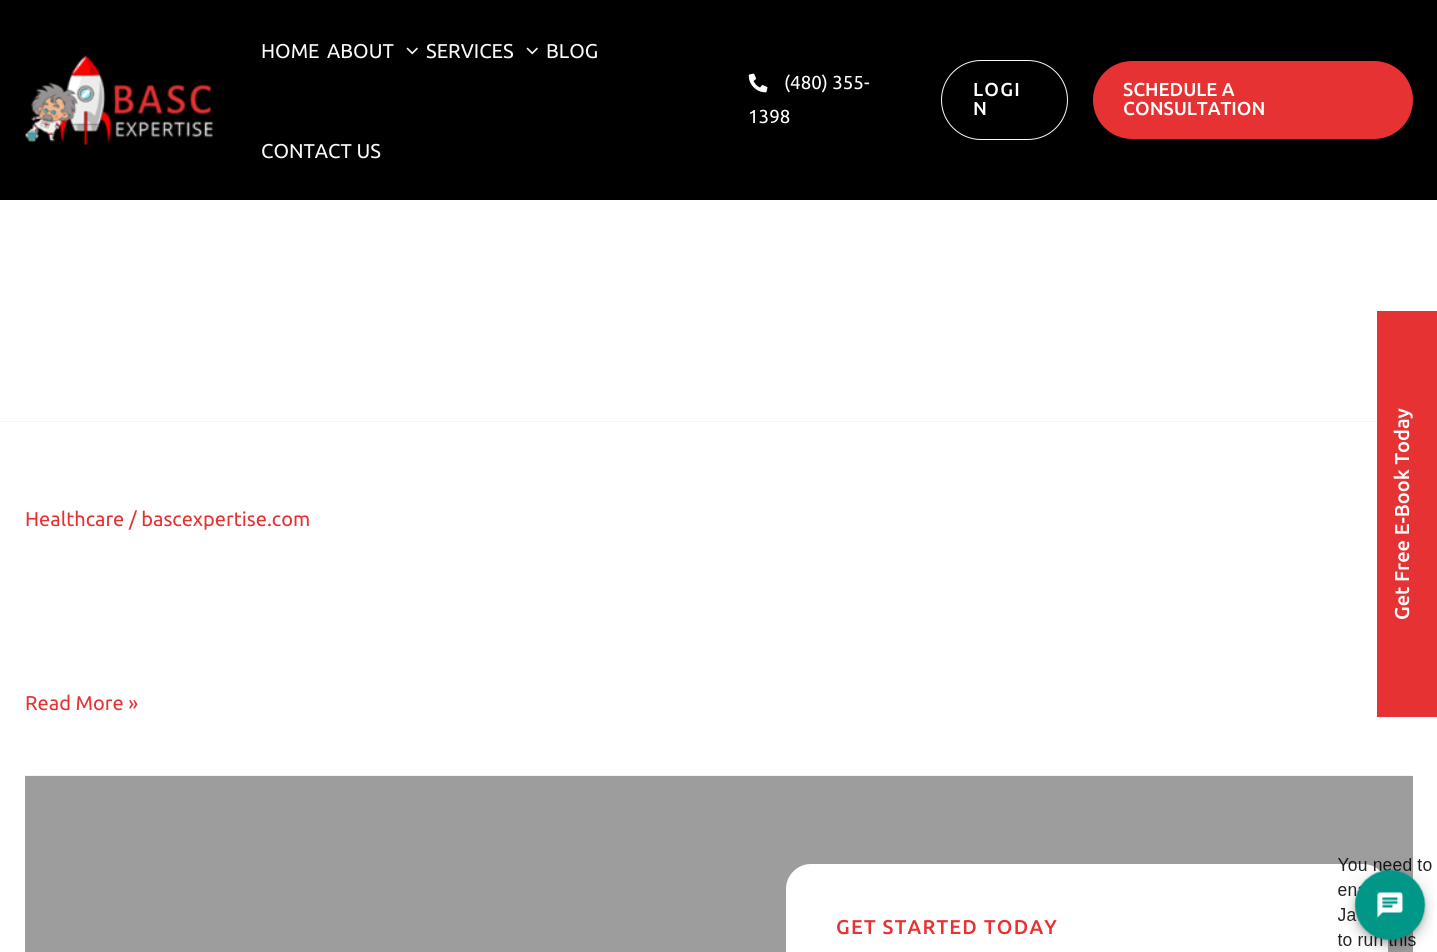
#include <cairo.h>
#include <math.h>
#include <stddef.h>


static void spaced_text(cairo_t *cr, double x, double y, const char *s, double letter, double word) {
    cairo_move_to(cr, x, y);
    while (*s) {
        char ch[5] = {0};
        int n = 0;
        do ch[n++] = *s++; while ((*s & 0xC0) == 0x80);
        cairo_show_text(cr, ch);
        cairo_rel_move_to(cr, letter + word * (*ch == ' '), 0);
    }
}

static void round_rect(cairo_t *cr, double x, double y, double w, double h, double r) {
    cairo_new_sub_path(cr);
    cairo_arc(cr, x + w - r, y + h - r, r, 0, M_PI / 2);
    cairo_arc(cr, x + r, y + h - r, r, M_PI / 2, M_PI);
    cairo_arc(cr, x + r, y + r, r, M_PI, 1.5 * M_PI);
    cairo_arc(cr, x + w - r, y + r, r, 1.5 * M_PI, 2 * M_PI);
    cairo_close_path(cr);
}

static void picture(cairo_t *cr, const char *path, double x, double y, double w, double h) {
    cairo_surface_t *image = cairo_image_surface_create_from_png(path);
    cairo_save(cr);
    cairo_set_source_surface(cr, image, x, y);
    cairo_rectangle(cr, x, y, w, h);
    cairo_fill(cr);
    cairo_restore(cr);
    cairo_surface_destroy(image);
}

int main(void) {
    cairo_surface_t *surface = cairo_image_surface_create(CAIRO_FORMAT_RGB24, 1437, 952);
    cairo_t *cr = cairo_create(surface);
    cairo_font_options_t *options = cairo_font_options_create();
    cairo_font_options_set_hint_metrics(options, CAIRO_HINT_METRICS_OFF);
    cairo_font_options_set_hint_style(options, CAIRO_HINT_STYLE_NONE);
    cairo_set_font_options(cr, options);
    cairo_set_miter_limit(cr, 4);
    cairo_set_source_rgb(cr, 1, 1, 1);
    cairo_paint(cr);
    cairo_set_source_rgb(cr, 0, 0, 0);
    cairo_rectangle(cr, 0, 0, 1437, 200);
    cairo_fill(cr);
    picture(cr, "img1.png", 25, 55, 188, 90);
    cairo_select_font_face(cr, "Ubuntu", CAIRO_FONT_SLANT_NORMAL, CAIRO_FONT_WEIGHT_NORMAL);
    cairo_set_font_size(cr, 20);
    cairo_set_source_rgb(cr, 0.976, 0.976, 0.976);
    cairo_move_to(cr, 261, 58);
    cairo_show_text(cr, "HOME");
    cairo_move_to(cr, 327, 58);
    cairo_show_text(cr, "ABOUT");
    picture(cr, "img2.png", 406, 47, 12, 8);
    cairo_move_to(cr, 426, 58);
    cairo_show_text(cr, "SERVICES");
    picture(cr, "img2.png", 526, 47, 12, 8);
    cairo_move_to(cr, 546, 58);
    cairo_show_text(cr, "BLOG");
    cairo_move_to(cr, 261, 158);
    cairo_show_text(cr, "CONTACT US");
    picture(cr, "img3.png", 748, 73, 20, 20);
    cairo_set_font_size(cr, 18.75);
    cairo_set_source_rgb(cr, 1, 1, 1);
    cairo_move_to(cr, 784, 89);
    cairo_show_text(cr, "(480) 355-");
    cairo_move_to(cr, 748, 123);
    cairo_show_text(cr, "1398");
    round_rect(cr, 941.5, 60.5, 126, 79, 39.5);
    cairo_set_source_rgb(cr, 0.976, 0.976, 0.976);
    cairo_set_line_width(cr, 1);
    cairo_stroke(cr);
    cairo_select_font_face(cr, "Ubuntu Medium", CAIRO_FONT_SLANT_NORMAL, CAIRO_FONT_WEIGHT_NORMAL);
    cairo_set_source_rgb(cr, 1, 1, 1);
    spaced_text(cr, 973, 96, "LOGI", 1.25, 0);
    spaced_text(cr, 973, 115, "N", 1.25, 0);
    cairo_set_source_rgb(cr, 0.906, 0.196, 0.2);
    round_rect(cr, 1093, 61, 320, 78, 39);
    cairo_fill(cr);
    cairo_set_source_rgb(cr, 1, 1, 1);
    cairo_move_to(cr, 1123, 96);
    cairo_show_text(cr, "SCHEDULE A");
    cairo_move_to(cr, 1123, 115);
    cairo_show_text(cr, "CONSULTATION");
    cairo_set_source_rgb(cr, 0.949, 0.961, 0.969);
    cairo_rectangle(cr, 0, 421, 1377, 1);
    cairo_fill(cr);
    cairo_rectangle(cr, 25, 775, 1388, 1);
    cairo_fill(cr);
    cairo_select_font_face(cr, "Ubuntu", CAIRO_FONT_SLANT_NORMAL, CAIRO_FONT_WEIGHT_NORMAL);
    cairo_set_font_size(cr, 20);
    cairo_set_source_rgb(cr, 0.906, 0.196, 0.2);
    cairo_move_to(cr, 25, 526);
    cairo_show_text(cr, "Healthcare / bascexpertise.com");
    cairo_move_to(cr, 25, 710);
    cairo_show_text(cr, "Read More »");
    cairo_set_source_rgb(cr, 0.616, 0.616, 0.616);
    cairo_rectangle(cr, 25, 776, 1388, 176);
    cairo_fill(cr);
    cairo_set_source_rgb(cr, 1, 1, 1);
    round_rect(cr, 786, 864, 602, 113, 25);
    cairo_fill(cr);
    cairo_select_font_face(cr, "Ubuntu Medium", CAIRO_FONT_SLANT_NORMAL, CAIRO_FONT_WEIGHT_NORMAL);
    cairo_set_source_rgb(cr, 0.906, 0.196, 0.2);
    spaced_text(cr, 836, 934, "GET STARTED TODAY", 1.25, 0);
    cairo_rectangle(cr, 1377, 311, 60, 406);
    cairo_fill(cr);
    cairo_set_source_rgb(cr, 1, 1, 1);
    cairo_save(cr);
    cairo_translate(cr, 1409, 620);
    cairo_rotate(cr, -90 * M_PI / 180);
    cairo_move_to(cr, 0, 0);
    cairo_show_text(cr, "Get Free E-Book Today");
    cairo_restore(cr);
    picture(cr, "img4.png", 1337, 858, 97, 94);
    cairo_surface_write_to_png(surface, "page.png");
    cairo_font_options_destroy(options);
    cairo_destroy(cr);
    cairo_surface_destroy(surface);
    return 0;
}
